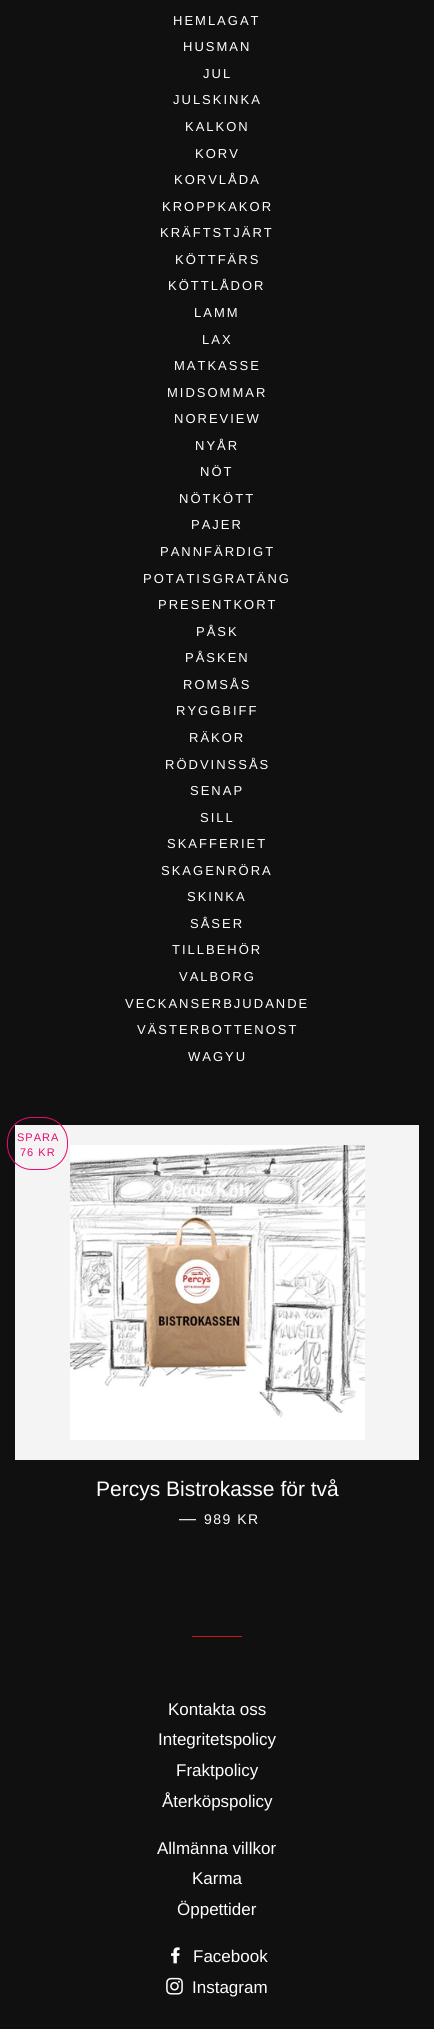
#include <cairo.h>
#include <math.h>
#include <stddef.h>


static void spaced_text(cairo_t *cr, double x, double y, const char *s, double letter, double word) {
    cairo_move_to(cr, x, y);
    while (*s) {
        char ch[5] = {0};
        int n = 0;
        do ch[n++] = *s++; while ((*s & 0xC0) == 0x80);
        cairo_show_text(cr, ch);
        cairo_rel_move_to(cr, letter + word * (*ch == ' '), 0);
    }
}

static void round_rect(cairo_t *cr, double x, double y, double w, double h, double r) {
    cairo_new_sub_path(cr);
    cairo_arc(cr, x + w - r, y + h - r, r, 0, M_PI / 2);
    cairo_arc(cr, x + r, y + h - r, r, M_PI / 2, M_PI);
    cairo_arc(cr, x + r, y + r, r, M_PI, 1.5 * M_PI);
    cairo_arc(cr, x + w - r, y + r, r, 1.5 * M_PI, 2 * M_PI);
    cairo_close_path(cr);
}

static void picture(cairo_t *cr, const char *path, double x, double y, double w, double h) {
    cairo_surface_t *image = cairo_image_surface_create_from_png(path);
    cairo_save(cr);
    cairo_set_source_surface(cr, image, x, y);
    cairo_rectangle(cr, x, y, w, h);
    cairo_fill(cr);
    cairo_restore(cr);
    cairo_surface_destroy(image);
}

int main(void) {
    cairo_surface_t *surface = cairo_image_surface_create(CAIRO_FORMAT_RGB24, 434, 2029);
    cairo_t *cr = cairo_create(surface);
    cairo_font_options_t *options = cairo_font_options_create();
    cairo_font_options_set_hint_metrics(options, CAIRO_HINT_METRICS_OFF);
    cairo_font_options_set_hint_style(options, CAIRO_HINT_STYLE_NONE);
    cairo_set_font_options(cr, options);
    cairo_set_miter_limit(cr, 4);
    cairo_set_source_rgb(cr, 0.063, 0.063, 0.063);
    cairo_paint(cr);
    cairo_select_font_face(cr, "Liberation Sans", CAIRO_FONT_SLANT_NORMAL, CAIRO_FONT_WEIGHT_NORMAL);
    cairo_set_font_size(cr, 13);
    cairo_set_source_rgb(cr, 1, 1, 1);
    spaced_text(cr, 173, 25, "HEMLAGAT", 2, 0);
    spaced_text(cr, 183, 51, "HUSMAN", 2, 0);
    spaced_text(cr, 203, 78, "JUL", 2, 0);
    spaced_text(cr, 173, 104, "JULSKINKA", 2, 0);
    spaced_text(cr, 185, 131, "KALKON", 2, 0);
    spaced_text(cr, 195, 158, "KORV", 2, 0);
    spaced_text(cr, 174, 184, "KORVLÅDA", 2, 0);
    spaced_text(cr, 162, 211, "KROPPKAKOR", 2, 0);
    spaced_text(cr, 160, 237, "KRÄFTSTJÄRT", 2, 0);
    spaced_text(cr, 175, 264, "KÖTTFÄRS", 2, 0);
    spaced_text(cr, 168, 290, "KÖTTLÅDOR", 2, 0);
    spaced_text(cr, 194, 317, "LAMM", 2, 0);
    spaced_text(cr, 202, 344, "LAX", 2, 0);
    spaced_text(cr, 174, 370, "MATKASSE", 2, 0);
    spaced_text(cr, 167, 397, "MIDSOMMAR", 2, 0);
    spaced_text(cr, 174, 423, "NOREVIEW", 2, 0);
    spaced_text(cr, 195, 450, "NYÅR", 2, 0);
    spaced_text(cr, 200, 476, "NÖT", 2, 0);
    spaced_text(cr, 179, 503, "NÖTKÖTT", 2, 0);
    spaced_text(cr, 191, 529, "PAJER", 2, 0);
    spaced_text(cr, 160, 556, "PANNFÄRDIGT", 2, 0);
    spaced_text(cr, 143, 583, "POTATISGRATÄNG", 2, 0);
    spaced_text(cr, 158, 609, "PRESENTKORT", 2, 0);
    spaced_text(cr, 196, 636, "PÅSK", 2, 0);
    spaced_text(cr, 185, 662, "PÅSKEN", 2, 0);
    spaced_text(cr, 183, 689, "ROMSÅS", 2, 0);
    spaced_text(cr, 176, 715, "RYGGBIFF", 2, 0);
    spaced_text(cr, 189, 742, "RÄKOR", 2, 0);
    spaced_text(cr, 165, 769, "RÖDVINSSÅS", 2, 0);
    spaced_text(cr, 190, 795, "SENAP", 2, 0);
    spaced_text(cr, 200, 822, "SILL", 2, 0);
    spaced_text(cr, 167, 848, "SKAFFERIET", 2, 0);
    spaced_text(cr, 161, 875, "SKAGENRÖRA", 2, 0);
    spaced_text(cr, 187, 901, "SKINKA", 2, 0);
    spaced_text(cr, 190, 928, "SÅSER", 2, 0);
    spaced_text(cr, 172, 954, "TILLBEHÖR", 2, 0);
    spaced_text(cr, 179, 981, "VALBORG", 2, 0);
    spaced_text(cr, 125, 1008, "VECKANSERBJUDANDE", 2, 0);
    spaced_text(cr, 137, 1034, "VÄSTERBOTTENOST", 2, 0);
    spaced_text(cr, 188, 1061, "WAGYU", 2, 0);
    cairo_set_source_rgb(cr, 0.957, 0.957, 0.957);
    cairo_rectangle(cr, 15, 1125, 404, 335);
    cairo_fill(cr);
    picture(cr, "img1.png", 70, 1145, 295, 295);
    round_rect(cr, 7.5, 1117.5, 60, 52, 24.5);
    cairo_set_source_rgb(cr, 0.91, 0.035, 0.439);
    cairo_set_line_width(cr, 1);
    cairo_stroke(cr);
    cairo_set_font_size(cr, 11);
    spaced_text(cr, 17, 1141, "SPARA", 1, 0);
    spaced_text(cr, 20, 1156, "76 KR", 1, 0);
    cairo_set_font_size(cr, 21);
    cairo_set_source_rgb(cr, 1, 1, 1);
    cairo_move_to(cr, 96, 1496);
    cairo_show_text(cr, "Percys Bistrokasse för två");
    cairo_set_font_size(cr, 17);
    cairo_move_to(cr, 179, 1524);
    cairo_show_text(cr, "—");
    cairo_set_font_size(cr, 14);
    spaced_text(cr, 204, 1524, "989 KR", 1.5, 0);
    cairo_set_source_rgb(cr, 0.792, 0.09, 0.09);
    cairo_rectangle(cr, 192, 1636, 50, 1);
    cairo_fill(cr);
    cairo_set_font_size(cr, 17);
    cairo_set_source_rgb(cr, 1, 1, 1);
    cairo_move_to(cr, 168, 1715);
    cairo_show_text(cr, "Kontakta oss");
    cairo_move_to(cr, 158, 1745);
    cairo_show_text(cr, "Integritetspolicy");
    cairo_move_to(cr, 176, 1776);
    cairo_show_text(cr, "Fraktpolicy");
    cairo_move_to(cr, 162, 1807);
    cairo_show_text(cr, "Återköpspolicy");
    cairo_move_to(cr, 157, 1854);
    cairo_show_text(cr, "Allmänna villkor");
    cairo_move_to(cr, 192, 1884);
    cairo_show_text(cr, "Karma");
    cairo_move_to(cr, 177, 1915);
    cairo_show_text(cr, "Öppettider");
    picture(cr, "img2.png", 171, 1947, 9, 17);
    cairo_move_to(cr, 193, 1962);
    cairo_show_text(cr, "Facebook");
    picture(cr, "img3.png", 166, 1977, 17, 18);
    cairo_move_to(cr, 192, 1993);
    cairo_show_text(cr, "Instagram");
    cairo_surface_write_to_png(surface, "page.png");
    cairo_font_options_destroy(options);
    cairo_destroy(cr);
    cairo_surface_destroy(surface);
    return 0;
}
